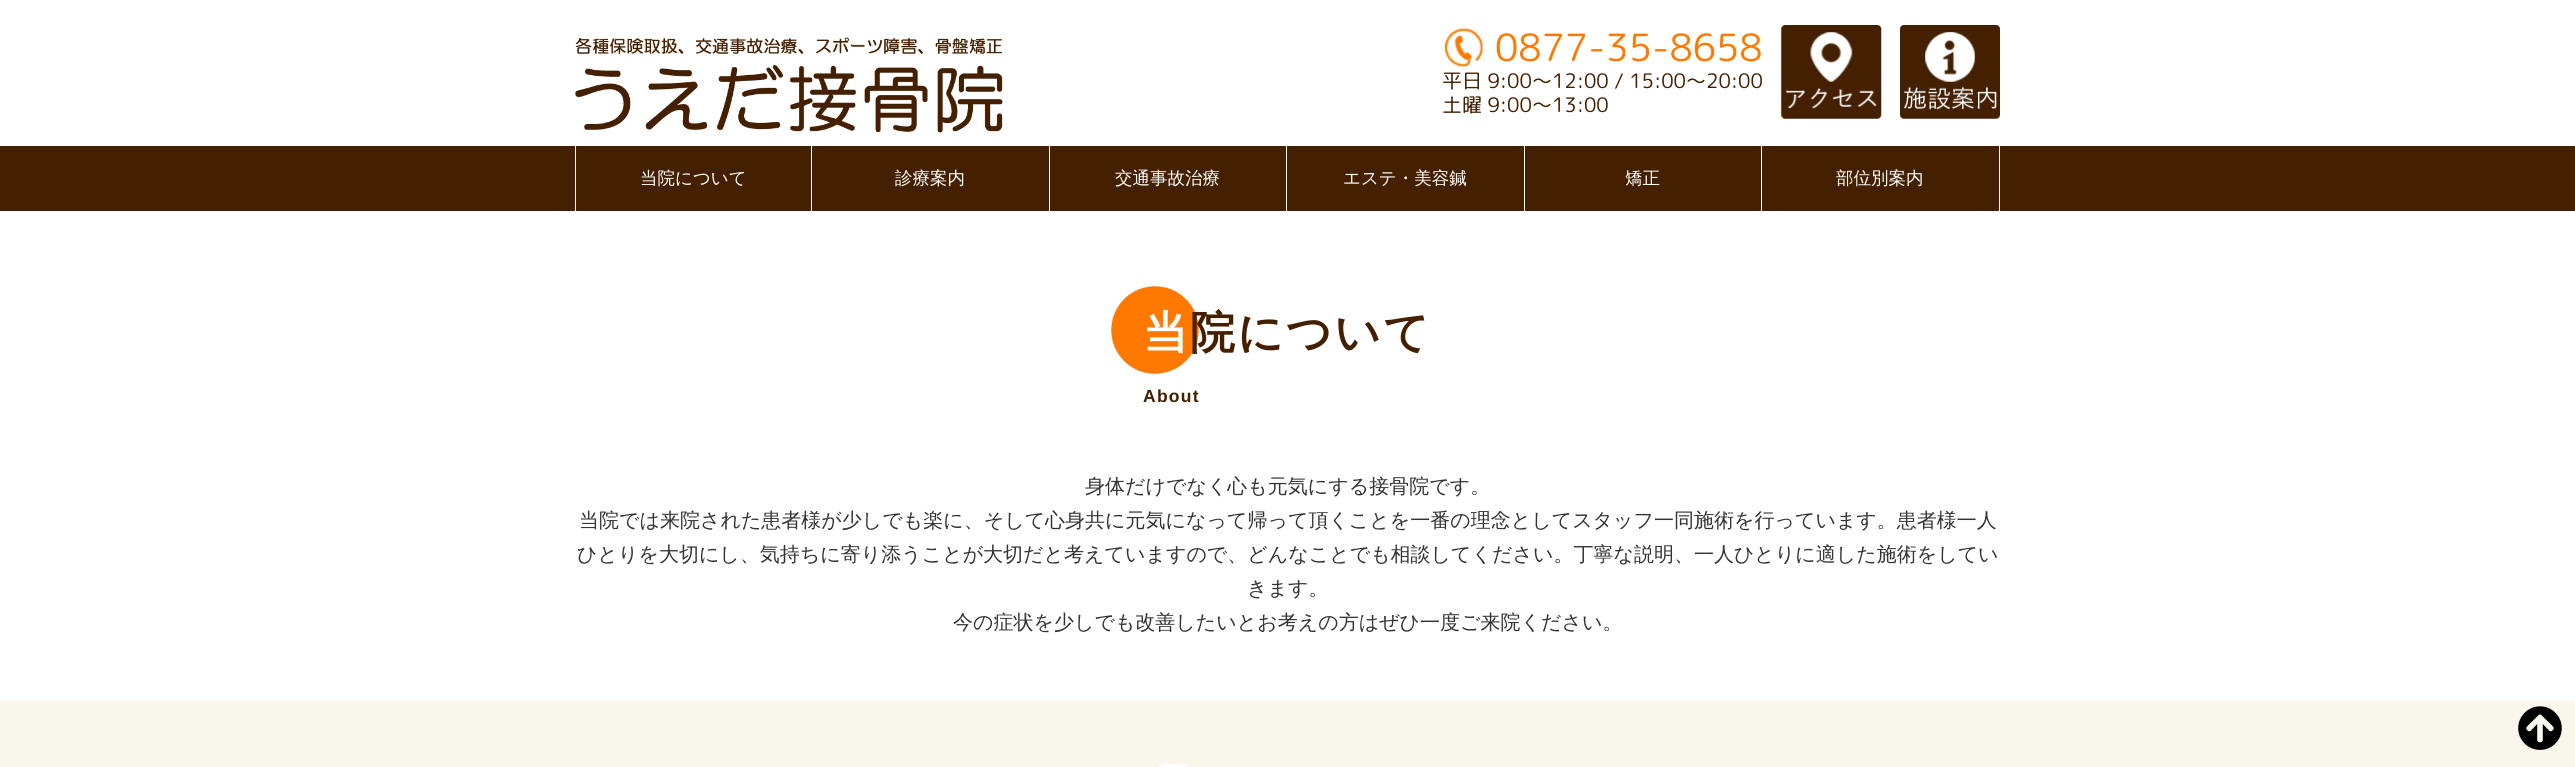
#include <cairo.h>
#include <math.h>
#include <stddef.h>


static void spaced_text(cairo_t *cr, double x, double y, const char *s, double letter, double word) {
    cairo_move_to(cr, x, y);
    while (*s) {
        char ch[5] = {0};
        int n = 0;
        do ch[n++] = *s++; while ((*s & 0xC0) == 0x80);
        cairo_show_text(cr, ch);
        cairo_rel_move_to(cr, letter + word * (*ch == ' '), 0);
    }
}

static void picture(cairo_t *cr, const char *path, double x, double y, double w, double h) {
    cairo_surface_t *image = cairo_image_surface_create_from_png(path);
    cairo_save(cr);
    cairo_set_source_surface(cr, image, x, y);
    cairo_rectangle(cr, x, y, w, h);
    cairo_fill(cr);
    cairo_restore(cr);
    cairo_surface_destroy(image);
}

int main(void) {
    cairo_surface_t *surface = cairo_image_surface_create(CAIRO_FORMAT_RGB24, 2575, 767);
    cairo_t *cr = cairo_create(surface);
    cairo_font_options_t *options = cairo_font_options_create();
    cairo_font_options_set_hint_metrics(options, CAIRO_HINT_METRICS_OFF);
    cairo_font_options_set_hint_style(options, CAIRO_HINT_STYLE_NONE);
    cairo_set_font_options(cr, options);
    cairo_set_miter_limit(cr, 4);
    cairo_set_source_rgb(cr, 1, 1, 1);
    cairo_paint(cr);
    picture(cr, "img1.png", 575, 37, 428, 96);
    picture(cr, "img2.png", 1445, 28, 38, 39);
    cairo_select_font_face(cr, "Rounded Mplus 1c", CAIRO_FONT_SLANT_NORMAL, CAIRO_FONT_WEIGHT_NORMAL);
    cairo_set_font_size(cr, 37.5);
    cairo_set_source_rgb(cr, 1, 0.471, 0);
    cairo_move_to(cr, 1495, 61);
    cairo_show_text(cr, "0877-35-8658");
    cairo_set_font_size(cr, 20);
    cairo_set_source_rgb(cr, 0.267, 0.125, 0.004);
    cairo_move_to(cr, 1442, 88);
    cairo_show_text(cr, "平日 9:00〜12:00 / 15:00〜20:00");
    cairo_move_to(cr, 1442, 112);
    cairo_show_text(cr, "土曜 9:00〜13:00");
    picture(cr, "img3.png", 1781, 25, 101, 94);
    picture(cr, "img4.png", 1900, 25, 100, 94);
    cairo_rectangle(cr, 0, 146, 2575, 65);
    cairo_fill(cr);
    cairo_set_source_rgb(cr, 1, 1, 1);
    cairo_rectangle(cr, 811, 146, 1, 65);
    cairo_fill(cr);
    cairo_rectangle(cr, 575, 146, 1, 65);
    cairo_fill(cr);
    cairo_select_font_face(cr, "WenQuanYi Zen Hei Medium", CAIRO_FONT_SLANT_NORMAL, CAIRO_FONT_WEIGHT_NORMAL);
    cairo_set_font_size(cr, 17.5);
    cairo_move_to(cr, 640, 184);
    cairo_show_text(cr, "当院について");
    cairo_rectangle(cr, 1049, 146, 1, 65);
    cairo_fill(cr);
    cairo_move_to(cr, 895, 184);
    cairo_show_text(cr, "診療案内");
    cairo_rectangle(cr, 1286, 146, 1, 65);
    cairo_fill(cr);
    cairo_move_to(cr, 1115, 184);
    cairo_show_text(cr, "交通事故治療");
    cairo_rectangle(cr, 1524, 146, 1, 65);
    cairo_fill(cr);
    cairo_move_to(cr, 1343, 184);
    cairo_show_text(cr, "エステ・美容鍼");
    cairo_rectangle(cr, 1761, 146, 1, 65);
    cairo_fill(cr);
    cairo_move_to(cr, 1625, 184);
    cairo_show_text(cr, "矯正");
    cairo_rectangle(cr, 1999, 146, 1, 65);
    cairo_fill(cr);
    cairo_move_to(cr, 1836, 184);
    cairo_show_text(cr, "部位別案内");
    picture(cr, "img5.png", 1111, 286, 88, 88);
    cairo_select_font_face(cr, "WenQuanYi Zen Hei", CAIRO_FONT_SLANT_NORMAL, CAIRO_FONT_WEIGHT_BOLD);
    cairo_set_font_size(cr, 45);
    spaced_text(cr, 1143, 348, "当", 2.5, 0);
    cairo_set_source_rgb(cr, 0.267, 0.125, 0.004);
    spaced_text(cr, 1190, 348, "院について", 2.5, 0);
    cairo_select_font_face(cr, "Liberation Sans", CAIRO_FONT_SLANT_NORMAL, CAIRO_FONT_WEIGHT_BOLD);
    cairo_set_font_size(cr, 17.5);
    spaced_text(cr, 1143, 402, "About", 1.25, 0);
    cairo_select_font_face(cr, "WenQuanYi Zen Hei Medium", CAIRO_FONT_SLANT_NORMAL, CAIRO_FONT_WEIGHT_NORMAL);
    cairo_set_font_size(cr, 20);
    cairo_set_source_rgb(cr, 0.2, 0.2, 0.2);
    cairo_move_to(cr, 1085, 493);
    cairo_show_text(cr, "身体だけでなく心も元気にする接骨院です。");
    cairo_move_to(cr, 579, 527);
    cairo_show_text(cr, "当院では来院された患者様が少しでも楽に、そして心身共に元気になって帰って頂くことを一番の理念としてスタッフ一同施術を行っています。患者様一人");
    cairo_move_to(cr, 577, 561);
    cairo_show_text(cr, "ひとりを大切にし、気持ちに寄り添うことが大切だと考えていますので、どんなことでも相談してください。丁寧な説明、一人ひとりに適した施術をしてい");
    cairo_move_to(cr, 1247, 595);
    cairo_show_text(cr, "きます。");
    cairo_move_to(cr, 953, 629);
    cairo_show_text(cr, "今の症状を少しでも改善したいとお考えの方はぜひ一度ご来院ください。");
    cairo_set_source_rgb(cr, 0.973, 0.961, 0.918);
    cairo_rectangle(cr, 0, 701, 2575, 66);
    cairo_fill(cr);
    picture(cr, "img6.png", 1158, 763, 32, 4);
    picture(cr, "img7.png", 2518, 706, 44, 44);
    cairo_surface_write_to_png(surface, "page.png");
    cairo_font_options_destroy(options);
    cairo_destroy(cr);
    cairo_surface_destroy(surface);
    return 0;
}
